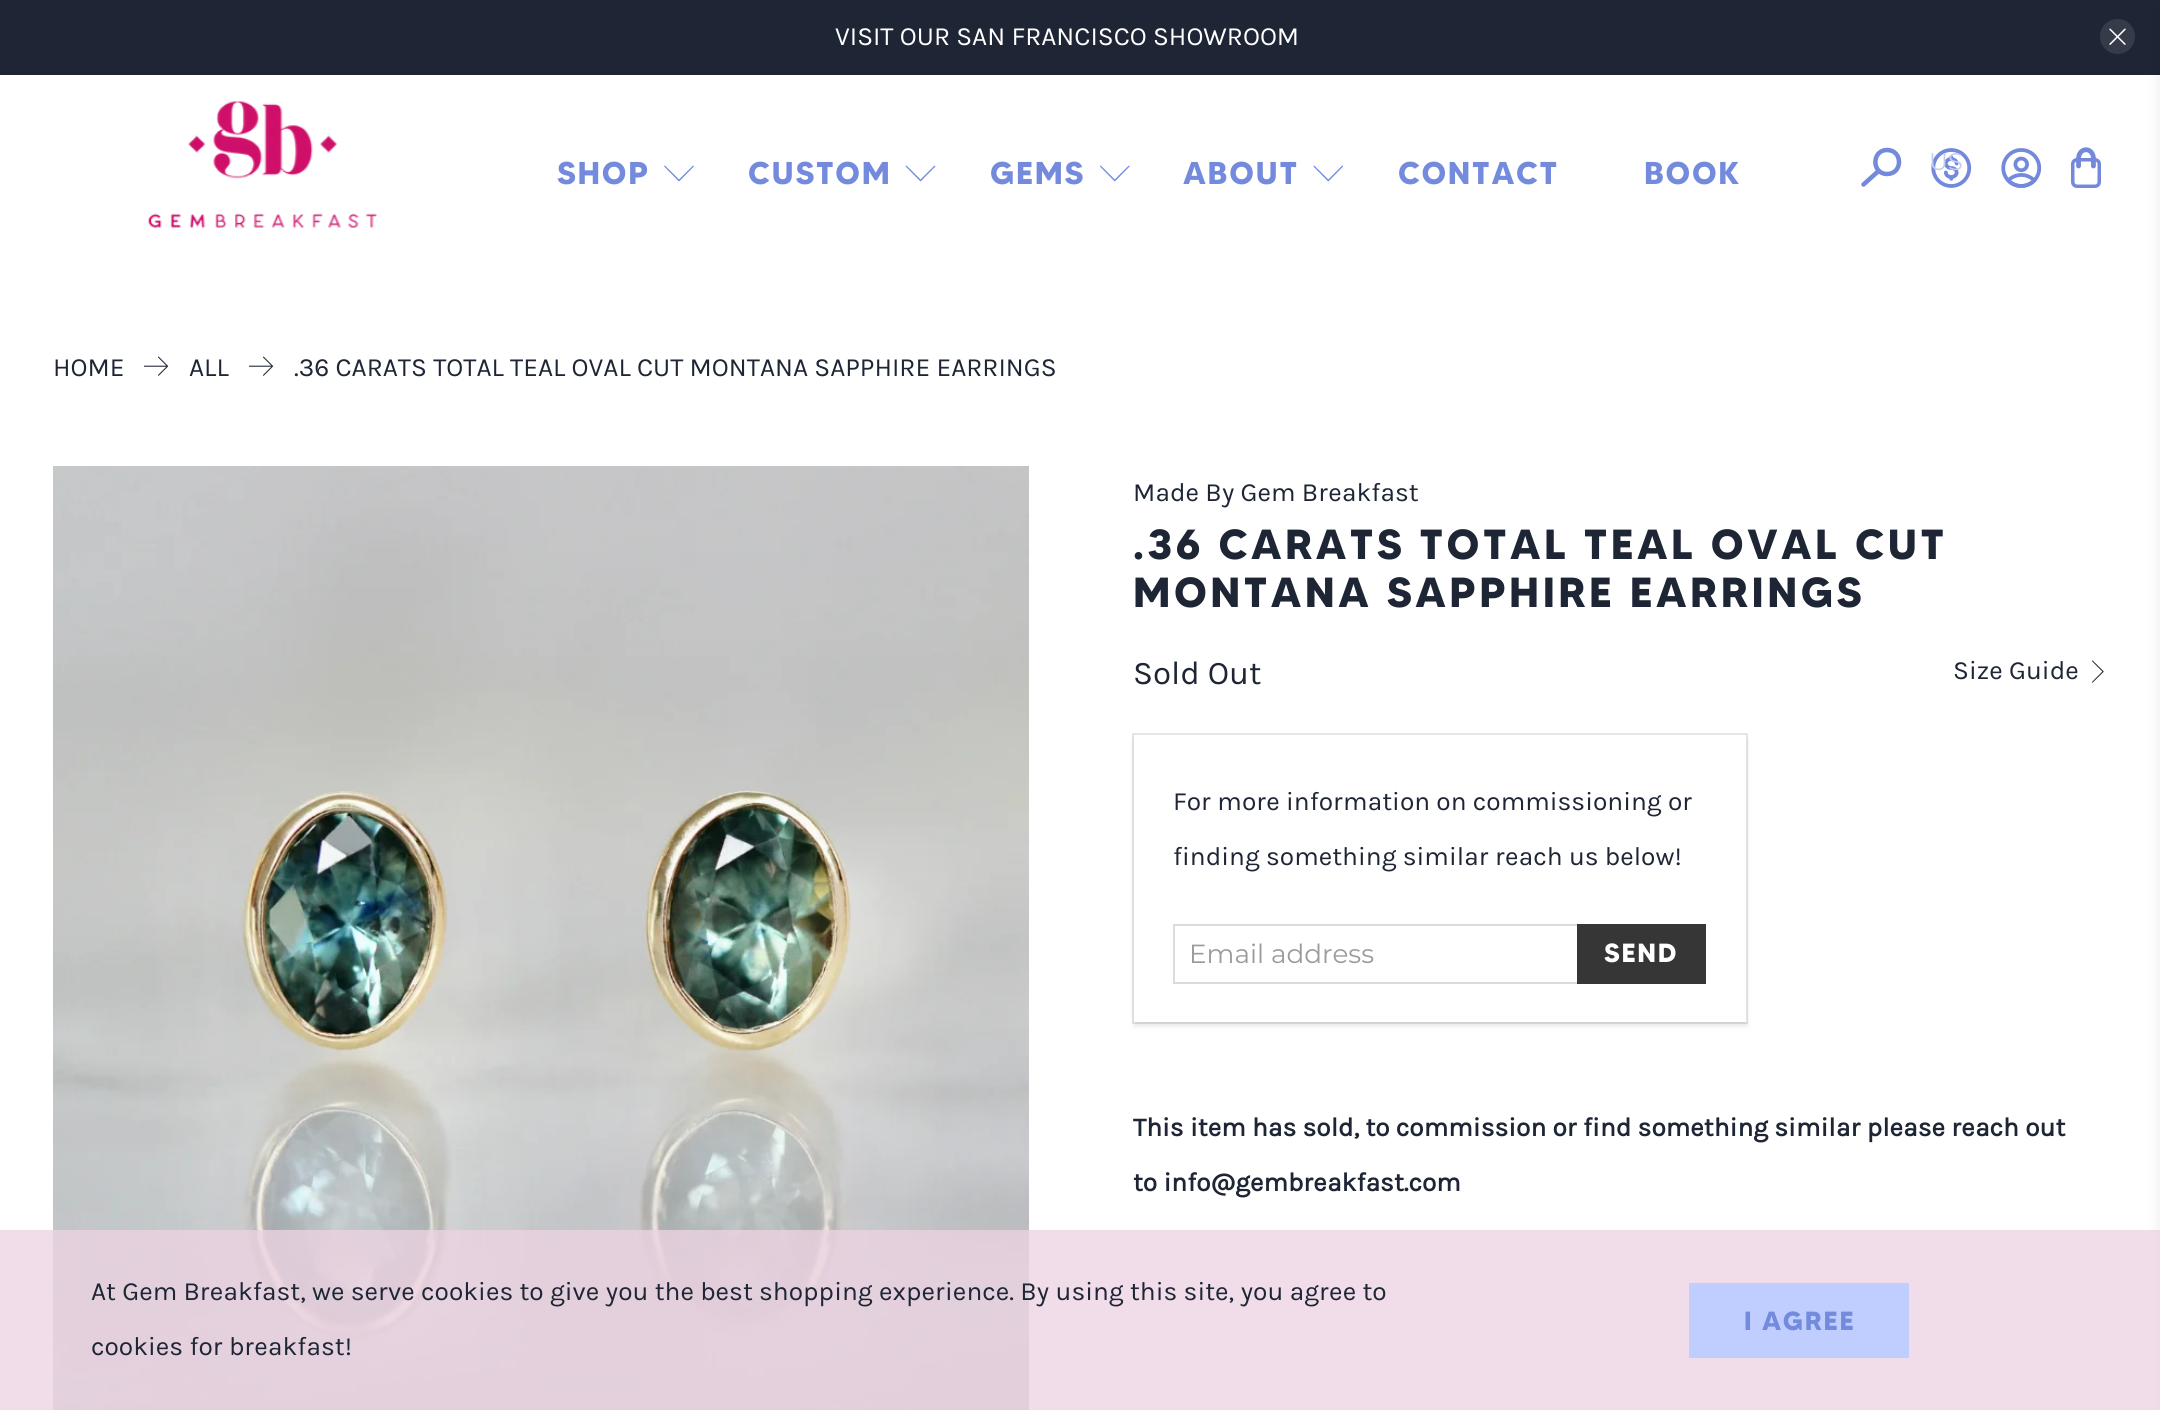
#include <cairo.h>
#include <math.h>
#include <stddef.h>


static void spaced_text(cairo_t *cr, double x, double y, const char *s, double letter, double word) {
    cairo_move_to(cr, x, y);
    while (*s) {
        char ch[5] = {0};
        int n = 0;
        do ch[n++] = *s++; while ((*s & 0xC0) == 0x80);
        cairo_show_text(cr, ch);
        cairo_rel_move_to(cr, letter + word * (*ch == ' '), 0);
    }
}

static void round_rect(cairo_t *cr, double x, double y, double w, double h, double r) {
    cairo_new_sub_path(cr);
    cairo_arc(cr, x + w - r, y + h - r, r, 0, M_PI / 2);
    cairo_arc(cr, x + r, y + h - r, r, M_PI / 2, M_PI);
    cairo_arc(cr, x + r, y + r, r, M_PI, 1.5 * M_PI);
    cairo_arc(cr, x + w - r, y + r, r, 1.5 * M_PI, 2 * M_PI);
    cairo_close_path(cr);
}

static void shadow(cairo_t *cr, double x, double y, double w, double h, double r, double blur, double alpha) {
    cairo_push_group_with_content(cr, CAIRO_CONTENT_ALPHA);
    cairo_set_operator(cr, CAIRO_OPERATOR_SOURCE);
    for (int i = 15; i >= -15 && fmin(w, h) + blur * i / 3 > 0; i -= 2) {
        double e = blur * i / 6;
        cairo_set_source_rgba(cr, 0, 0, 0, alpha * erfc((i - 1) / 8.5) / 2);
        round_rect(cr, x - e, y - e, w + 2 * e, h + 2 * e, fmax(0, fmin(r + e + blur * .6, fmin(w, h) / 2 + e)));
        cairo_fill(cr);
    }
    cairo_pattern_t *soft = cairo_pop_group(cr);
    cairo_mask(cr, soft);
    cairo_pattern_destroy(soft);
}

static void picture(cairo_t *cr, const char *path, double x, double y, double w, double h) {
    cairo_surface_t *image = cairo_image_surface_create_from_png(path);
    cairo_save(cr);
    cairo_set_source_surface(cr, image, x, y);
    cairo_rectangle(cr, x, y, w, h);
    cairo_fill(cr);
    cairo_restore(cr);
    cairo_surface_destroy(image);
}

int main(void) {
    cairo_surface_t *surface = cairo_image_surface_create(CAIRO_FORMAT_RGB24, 2160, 1410);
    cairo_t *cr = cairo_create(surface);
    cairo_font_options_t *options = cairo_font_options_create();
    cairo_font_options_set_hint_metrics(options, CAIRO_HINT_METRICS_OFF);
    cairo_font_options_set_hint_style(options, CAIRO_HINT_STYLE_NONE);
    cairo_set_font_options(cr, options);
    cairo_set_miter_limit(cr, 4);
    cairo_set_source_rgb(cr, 1, 1, 1);
    cairo_paint(cr);
    cairo_set_source_rgb(cr, 0.118, 0.145, 0.208);
    cairo_rectangle(cr, 0, 0, 2160, 75);
    cairo_fill(cr);
    cairo_select_font_face(cr, "Karla", CAIRO_FONT_SLANT_NORMAL, CAIRO_FONT_WEIGHT_NORMAL);
    cairo_set_font_size(cr, 26.25);
    cairo_set_source_rgb(cr, 1, 1, 1);
    cairo_move_to(cr, 835, 45);
    cairo_show_text(cr, "VISIT OUR SAN FRANCISCO SHOWROOM");
    cairo_set_source_rgb(cr, 0.208, 0.231, 0.286);
    cairo_new_path(cr);
    cairo_arc(cr, 2117.5, 36.5, 17.5, 0, 2 * M_PI);
    cairo_fill(cr);
    picture(cr, "img1.png", 2109, 28, 17, 17);
    cairo_set_source_rgb(cr, 0.039, 0.039, 0.039);
    shadow(cr, 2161, 14, 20, 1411, 0, 7, 0.1);
    picture(cr, "img2.png", 148, 101, 229, 127);
    cairo_select_font_face(cr, "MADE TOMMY", CAIRO_FONT_SLANT_NORMAL, CAIRO_FONT_WEIGHT_BOLD);
    cairo_set_font_size(cr, 31.5);
    cairo_set_source_rgb(cr, 0.451, 0.541, 0.867);
    spaced_text(cr, 557, 184, "SHOP", 1.75, 0);
    picture(cr, "img3.png", 664, 165, 30, 17);
    spaced_text(cr, 748, 184, "CUSTOM", 1.75, 0);
    picture(cr, "img4.png", 905, 165, 31, 17);
    spaced_text(cr, 990, 184, "GEMS", 1.75, 0);
    picture(cr, "img5.png", 1100, 165, 30, 17);
    spaced_text(cr, 1183, 184, "ABOUT", 1.75, 0);
    picture(cr, "img6.png", 1313, 165, 30, 17);
    spaced_text(cr, 1398, 184, "CONTACT", 1.75, 0);
    spaced_text(cr, 1644, 184, "BOOK", 1.75, 0);
    cairo_new_path(cr);
    cairo_move_to(cr, 1863.5, 184.5);
    cairo_line_to(cr, 1878.5, 171);
    cairo_set_source_rgb(cr, 0.451, 0.537, 0.863);
    cairo_set_line_width(cr, 4.5);
    cairo_set_line_cap(cr, CAIRO_LINE_CAP_ROUND);
    cairo_stroke(cr);
    cairo_new_path(cr);
    cairo_move_to(cr, 1887, 174);
    cairo_curve_to(cr, 1903, 174, 1903, 150, 1887, 150);
    cairo_curve_to(cr, 1871.5, 150, 1871.5, 174, 1887, 174);
    cairo_close_path(cr);
    cairo_set_line_cap(cr, CAIRO_LINE_CAP_BUTT);
    cairo_stroke(cr);
    picture(cr, "img7.png", 1931, 148, 41, 40);
    cairo_select_font_face(cr, "Montserrat", CAIRO_FONT_SLANT_NORMAL, CAIRO_FONT_WEIGHT_NORMAL);
    cairo_set_font_size(cr, 24);
    cairo_set_source_rgb(cr, 0.769, 0.804, 0.941);
    cairo_move_to(cr, 1929, 170);
    cairo_show_text(cr, "US");
    picture(cr, "img8.png", 2001, 148, 41, 40);
    picture(cr, "img9.png", 2071, 147, 30, 41);
    cairo_select_font_face(cr, "Karla", CAIRO_FONT_SLANT_NORMAL, CAIRO_FONT_WEIGHT_NORMAL);
    cairo_set_font_size(cr, 26.25);
    cairo_set_source_rgb(cr, 0.118, 0.145, 0.208);
    cairo_move_to(cr, 53, 376);
    cairo_show_text(cr, "HOME");
    picture(cr, "img10.png", 144, 356, 25, 20);
    cairo_move_to(cr, 189, 376);
    cairo_show_text(cr, "ALL");
    picture(cr, "img10.png", 249, 356, 25, 20);
    cairo_move_to(cr, 294, 376);
    cairo_show_text(cr, ".36 CARATS TOTAL TEAL OVAL CUT MONTANA SAPPHIRE EARRINGS");
    picture(cr, "img11.png", 53, 466, 976, 944);
    cairo_move_to(cr, 1133, 501);
    cairo_show_text(cr, "Made By Gem Breakfast");
    cairo_select_font_face(cr, "MADE TOMMY", CAIRO_FONT_SLANT_NORMAL, CAIRO_FONT_WEIGHT_BOLD);
    cairo_set_font_size(cr, 42);
    spaced_text(cr, 1133, 559, ".36 CARATS TOTAL TEAL OVAL CUT", 3.5, 0);
    spaced_text(cr, 1133, 607, "MONTANA SAPPHIRE EARRINGS", 3.5, 0);
    cairo_select_font_face(cr, "Karla", CAIRO_FONT_SLANT_NORMAL, CAIRO_FONT_WEIGHT_NORMAL);
    cairo_set_font_size(cr, 33);
    cairo_move_to(cr, 1133, 684);
    cairo_show_text(cr, "Sold Out");
    cairo_set_font_size(cr, 26.25);
    cairo_move_to(cr, 1953, 679);
    cairo_show_text(cr, "Size Guide");
    picture(cr, "img12.png", 2092, 660, 12, 23);
    cairo_rectangle(cr, 1133, 734, 614, 289);
    cairo_set_source_rgb(cr, 0.902, 0.902, 0.902);
    cairo_set_line_width(cr, 2);
    cairo_stroke(cr);
    cairo_save(cr);
    cairo_set_fill_rule(cr, CAIRO_FILL_RULE_EVEN_ODD);
    cairo_new_path(cr);
    cairo_move_to(cr, 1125, 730);
    cairo_line_to(cr, 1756, 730);
    cairo_line_to(cr, 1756, 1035);
    cairo_line_to(cr, 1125, 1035);
    cairo_close_path(cr);
    cairo_move_to(cr, 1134, 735);
    cairo_line_to(cr, 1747, 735);
    cairo_line_to(cr, 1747, 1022);
    cairo_line_to(cr, 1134, 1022);
    cairo_close_path(cr);
    cairo_clip(cr);
    cairo_set_source_rgb(cr, 0, 0, 0);
    shadow(cr, 1134, 739, 613, 287, 0, 2.5, 0.1);
    cairo_restore(cr);
    cairo_set_source_rgb(cr, 0.118, 0.145, 0.208);
    cairo_move_to(cr, 1173, 810);
    cairo_show_text(cr, "For more information on commissioning or");
    cairo_move_to(cr, 1173, 865);
    cairo_show_text(cr, "finding something similar reach us below!");
    cairo_rectangle(cr, 1174, 925, 404, 58);
    cairo_set_source_rgb(cr, 0.859, 0.859, 0.859);
    cairo_stroke(cr);
    cairo_select_font_face(cr, "Montserrat", CAIRO_FONT_SLANT_NORMAL, CAIRO_FONT_WEIGHT_NORMAL);
    cairo_set_source_rgb(cr, 0.608, 0.608, 0.608);
    cairo_move_to(cr, 1189, 963);
    cairo_show_text(cr, "Email address");
    cairo_set_source_rgb(cr, 0.212, 0.212, 0.212);
    cairo_rectangle(cr, 1577, 924, 129, 60);
    cairo_fill(cr);
    cairo_select_font_face(cr, "MADE TOMMY", CAIRO_FONT_SLANT_NORMAL, CAIRO_FONT_WEIGHT_BOLD);
    cairo_set_source_rgb(cr, 1, 1, 1);
    spaced_text(cr, 1604, 962, "SEND", 1.75, 0);
    cairo_select_font_face(cr, "Karla", CAIRO_FONT_SLANT_NORMAL, CAIRO_FONT_WEIGHT_BOLD);
    cairo_set_source_rgb(cr, 0.118, 0.145, 0.208);
    cairo_move_to(cr, 1133, 1136);
    cairo_show_text(cr, "This item has sold, to commission or find something similar please reach out");
    cairo_move_to(cr, 1133, 1191);
    cairo_show_text(cr, "to info@gembreakfast.com");
    cairo_set_source_rgba(cr, 0.933, 0.831, 0.89, 0.77);
    cairo_rectangle(cr, 0, 1230, 2160, 180);
    cairo_fill(cr);
    cairo_select_font_face(cr, "Karla", CAIRO_FONT_SLANT_NORMAL, CAIRO_FONT_WEIGHT_NORMAL);
    cairo_set_source_rgb(cr, 0.118, 0.145, 0.208);
    cairo_move_to(cr, 91, 1300);
    cairo_show_text(cr, "At Gem Breakfast, we serve cookies to give you the best shopping experience. By using this site, you agree to");
    cairo_move_to(cr, 91, 1355);
    cairo_show_text(cr, "cookies for breakfast!");
    cairo_set_source_rgb(cr, 0.749, 0.804, 1);
    cairo_rectangle(cr, 1689, 1283, 220, 75);
    cairo_fill(cr);
    cairo_select_font_face(cr, "MADE TOMMY", CAIRO_FONT_SLANT_NORMAL, CAIRO_FONT_WEIGHT_BOLD);
    cairo_set_source_rgb(cr, 0.451, 0.541, 0.867);
    spaced_text(cr, 1744, 1330, "I AGREE", 1.75, 0);
    cairo_surface_write_to_png(surface, "page.png");
    cairo_font_options_destroy(options);
    cairo_destroy(cr);
    cairo_surface_destroy(surface);
    return 0;
}
